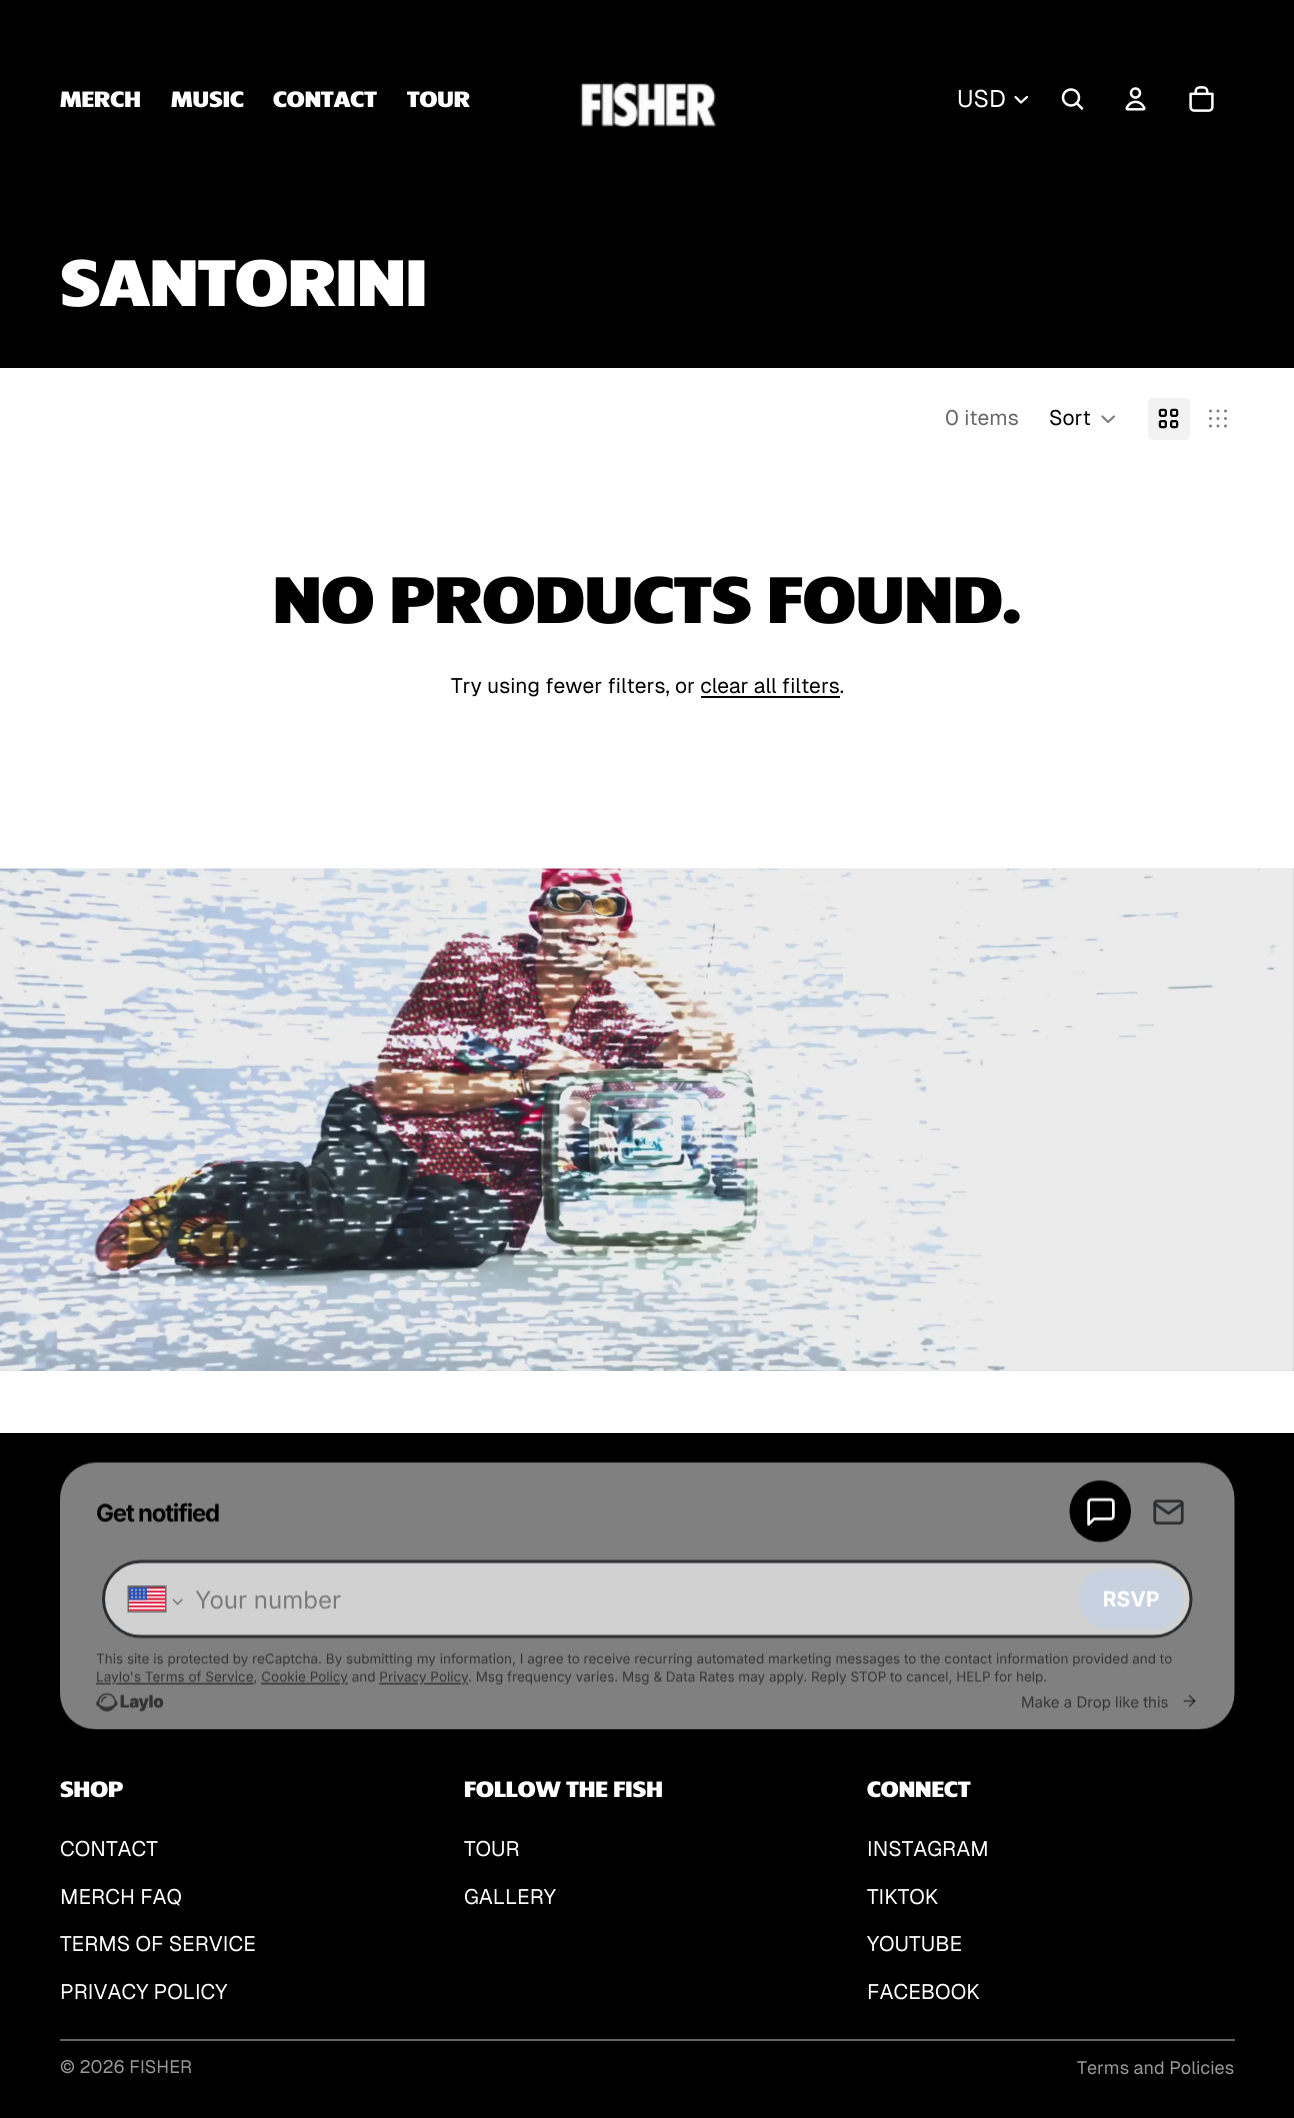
#include <cairo.h>
#include <math.h>
#include <stddef.h>


static void round_rect(cairo_t *cr, double x, double y, double w, double h, double r) {
    cairo_new_sub_path(cr);
    cairo_arc(cr, x + w - r, y + h - r, r, 0, M_PI / 2);
    cairo_arc(cr, x + r, y + h - r, r, M_PI / 2, M_PI);
    cairo_arc(cr, x + r, y + r, r, M_PI, 1.5 * M_PI);
    cairo_arc(cr, x + w - r, y + r, r, 1.5 * M_PI, 2 * M_PI);
    cairo_close_path(cr);
}

static void picture(cairo_t *cr, const char *path, double x, double y, double w, double h) {
    cairo_surface_t *image = cairo_image_surface_create_from_png(path);
    cairo_save(cr);
    cairo_set_source_surface(cr, image, x, y);
    cairo_rectangle(cr, x, y, w, h);
    cairo_fill(cr);
    cairo_restore(cr);
    cairo_surface_destroy(image);
}

int main(void) {
    cairo_surface_t *surface = cairo_image_surface_create(CAIRO_FORMAT_RGB24, 1294, 2118);
    cairo_t *cr = cairo_create(surface);
    cairo_font_options_t *options = cairo_font_options_create();
    cairo_font_options_set_hint_metrics(options, CAIRO_HINT_METRICS_OFF);
    cairo_font_options_set_hint_style(options, CAIRO_HINT_STYLE_NONE);
    cairo_set_font_options(cr, options);
    cairo_set_miter_limit(cr, 4);
    cairo_set_source_rgb(cr, 1, 1, 1);
    cairo_paint(cr);
    cairo_set_source_rgb(cr, 0, 0, 0);
    cairo_rectangle(cr, 0, 0, 1294, 368);
    cairo_fill(cr);
    cairo_select_font_face(cr, "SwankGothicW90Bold", CAIRO_FONT_SLANT_NORMAL, CAIRO_FONT_WEIGHT_BOLD);
    cairo_set_font_size(cr, 21);
    cairo_set_source_rgb(cr, 1, 1, 1);
    cairo_move_to(cr, 60, 107);
    cairo_show_text(cr, "MERCH");
    cairo_move_to(cr, 171, 107);
    cairo_show_text(cr, "MUSIC");
    cairo_move_to(cr, 273, 107);
    cairo_show_text(cr, "CONTACT");
    cairo_move_to(cr, 407, 107);
    cairo_show_text(cr, "TOUR");
    picture(cr, "img1.png", 580, 82, 136, 46);
    cairo_select_font_face(cr, "Geist", CAIRO_FONT_SLANT_NORMAL, CAIRO_FONT_WEIGHT_NORMAL);
    cairo_set_font_size(cr, 24);
    cairo_move_to(cr, 957, 107);
    cairo_show_text(cr, "USD");
    cairo_new_path(cr);
    cairo_move_to(cr, 1027, 97);
    cairo_line_to(cr, 1021, 102.5);
    cairo_line_to(cr, 1015.5, 97);
    cairo_set_line_width(cr, 2.2);
    cairo_set_line_cap(cr, CAIRO_LINE_CAP_ROUND);
    cairo_set_line_join(cr, CAIRO_LINE_JOIN_ROUND);
    cairo_stroke(cr);
    cairo_arc(cr, 1071, 97.5, 8, 0, 2 * M_PI);
    cairo_set_line_width(cr, 2.5);
    cairo_set_line_cap(cr, CAIRO_LINE_CAP_BUTT);
    cairo_set_line_join(cr, CAIRO_LINE_JOIN_MITER);
    cairo_stroke(cr);
    cairo_new_path(cr);
    cairo_move_to(cr, 1076.5, 103);
    cairo_line_to(cr, 1082, 108.5);
    cairo_set_line_cap(cr, CAIRO_LINE_CAP_ROUND);
    cairo_set_line_join(cr, CAIRO_LINE_JOIN_ROUND);
    cairo_stroke(cr);
    picture(cr, "img2.png", 1125, 87, 21, 24);
    picture(cr, "img3.png", 1189, 86, 25, 26);
    cairo_select_font_face(cr, "SwankGothicW90Bold", CAIRO_FONT_SLANT_NORMAL, CAIRO_FONT_WEIGHT_BOLD);
    cairo_set_font_size(cr, 62.1);
    cairo_move_to(cr, 60, 306);
    cairo_show_text(cr, "SANTORINI");
    cairo_select_font_face(cr, "Geist", CAIRO_FONT_SLANT_NORMAL, CAIRO_FONT_WEIGHT_NORMAL);
    cairo_set_font_size(cr, 21);
    cairo_set_source_rgb(cr, 0.4, 0.4, 0.4);
    cairo_move_to(cr, 945, 425);
    cairo_show_text(cr, "0 items");
    cairo_set_source_rgb(cr, 0, 0, 0);
    cairo_move_to(cr, 1049, 425);
    cairo_show_text(cr, "Sort");
    cairo_new_path(cr);
    cairo_move_to(cr, 1114, 416.5);
    cairo_line_to(cr, 1108, 422);
    cairo_line_to(cr, 1102.5, 416.5);
    cairo_set_source_rgb(cr, 0.502, 0.502, 0.502);
    cairo_set_line_width(cr, 2.2);
    cairo_stroke(cr);
    cairo_set_source_rgb(cr, 0.949, 0.949, 0.949);
    round_rect(cr, 1148, 398, 42, 42, 5);
    cairo_fill(cr);
    picture(cr, "img4.png", 1158, 408, 21, 21);
    picture(cr, "img5.png", 1209, 409, 18, 19);
    cairo_select_font_face(cr, "SwankGothicW90Bold", CAIRO_FONT_SLANT_NORMAL, CAIRO_FONT_WEIGHT_BOLD);
    cairo_set_font_size(cr, 62.1);
    cairo_set_source_rgb(cr, 0, 0, 0);
    cairo_move_to(cr, 273, 623);
    cairo_show_text(cr, "NO PRODUCTS FOUND.");
    cairo_select_font_face(cr, "Geist", CAIRO_FONT_SLANT_NORMAL, CAIRO_FONT_WEIGHT_NORMAL);
    cairo_set_font_size(cr, 21);
    cairo_move_to(cr, 451, 693);
    cairo_show_text(cr, "Try using fewer filters, or clear all filters.");
    cairo_rectangle(cr, 701, 696, 139, 2);
    cairo_fill(cr);
    picture(cr, "img6.png", 0, 868, 1294, 1);
    picture(cr, "img7.png", 0, 868, 1294, 503);
    cairo_rectangle(cr, 0, 1433, 1294, 685);
    cairo_fill(cr);
    picture(cr, "img8.png", 60, 1462, 1175, 268);
    cairo_select_font_face(cr, "SwankGothicW90Bold", CAIRO_FONT_SLANT_NORMAL, CAIRO_FONT_WEIGHT_BOLD);
    cairo_set_source_rgb(cr, 1, 1, 1);
    cairo_move_to(cr, 60, 1797);
    cairo_show_text(cr, "SHOP");
    cairo_select_font_face(cr, "Geist", CAIRO_FONT_SLANT_NORMAL, CAIRO_FONT_WEIGHT_NORMAL);
    cairo_move_to(cr, 60, 1856);
    cairo_show_text(cr, "CONTACT");
    cairo_move_to(cr, 60, 1904);
    cairo_show_text(cr, "MERCH FAQ");
    cairo_move_to(cr, 60, 1951);
    cairo_show_text(cr, "TERMS OF SERVICE");
    cairo_move_to(cr, 60, 1999);
    cairo_show_text(cr, "PRIVACY POLICY");
    cairo_select_font_face(cr, "SwankGothicW90Bold", CAIRO_FONT_SLANT_NORMAL, CAIRO_FONT_WEIGHT_BOLD);
    cairo_move_to(cr, 464, 1797);
    cairo_show_text(cr, "FOLLOW THE FISH");
    cairo_select_font_face(cr, "Geist", CAIRO_FONT_SLANT_NORMAL, CAIRO_FONT_WEIGHT_NORMAL);
    cairo_move_to(cr, 464, 1856);
    cairo_show_text(cr, "TOUR");
    cairo_move_to(cr, 464, 1904);
    cairo_show_text(cr, "GALLERY");
    cairo_select_font_face(cr, "SwankGothicW90Bold", CAIRO_FONT_SLANT_NORMAL, CAIRO_FONT_WEIGHT_BOLD);
    cairo_move_to(cr, 867, 1797);
    cairo_show_text(cr, "CONNECT");
    cairo_select_font_face(cr, "Geist", CAIRO_FONT_SLANT_NORMAL, CAIRO_FONT_WEIGHT_NORMAL);
    cairo_move_to(cr, 867, 1856);
    cairo_show_text(cr, "INSTAGRAM");
    cairo_move_to(cr, 867, 1904);
    cairo_show_text(cr, "TIKTOK");
    cairo_move_to(cr, 867, 1951);
    cairo_show_text(cr, "YOUTUBE");
    cairo_move_to(cr, 867, 1999);
    cairo_show_text(cr, "FACEBOOK");
    cairo_set_source_rgb(cr, 0.4, 0.4, 0.4);
    cairo_rectangle(cr, 60, 2039, 1175, 2);
    cairo_fill(cr);
    cairo_set_font_size(cr, 18);
    cairo_set_source_rgb(cr, 0.6, 0.6, 0.6);
    cairo_move_to(cr, 60, 2073);
    cairo_show_text(cr, "© 2026 FISHER");
    cairo_move_to(cr, 1077, 2074);
    cairo_show_text(cr, "Terms and Policies");
    cairo_surface_write_to_png(surface, "page.png");
    cairo_font_options_destroy(options);
    cairo_destroy(cr);
    cairo_surface_destroy(surface);
    return 0;
}
